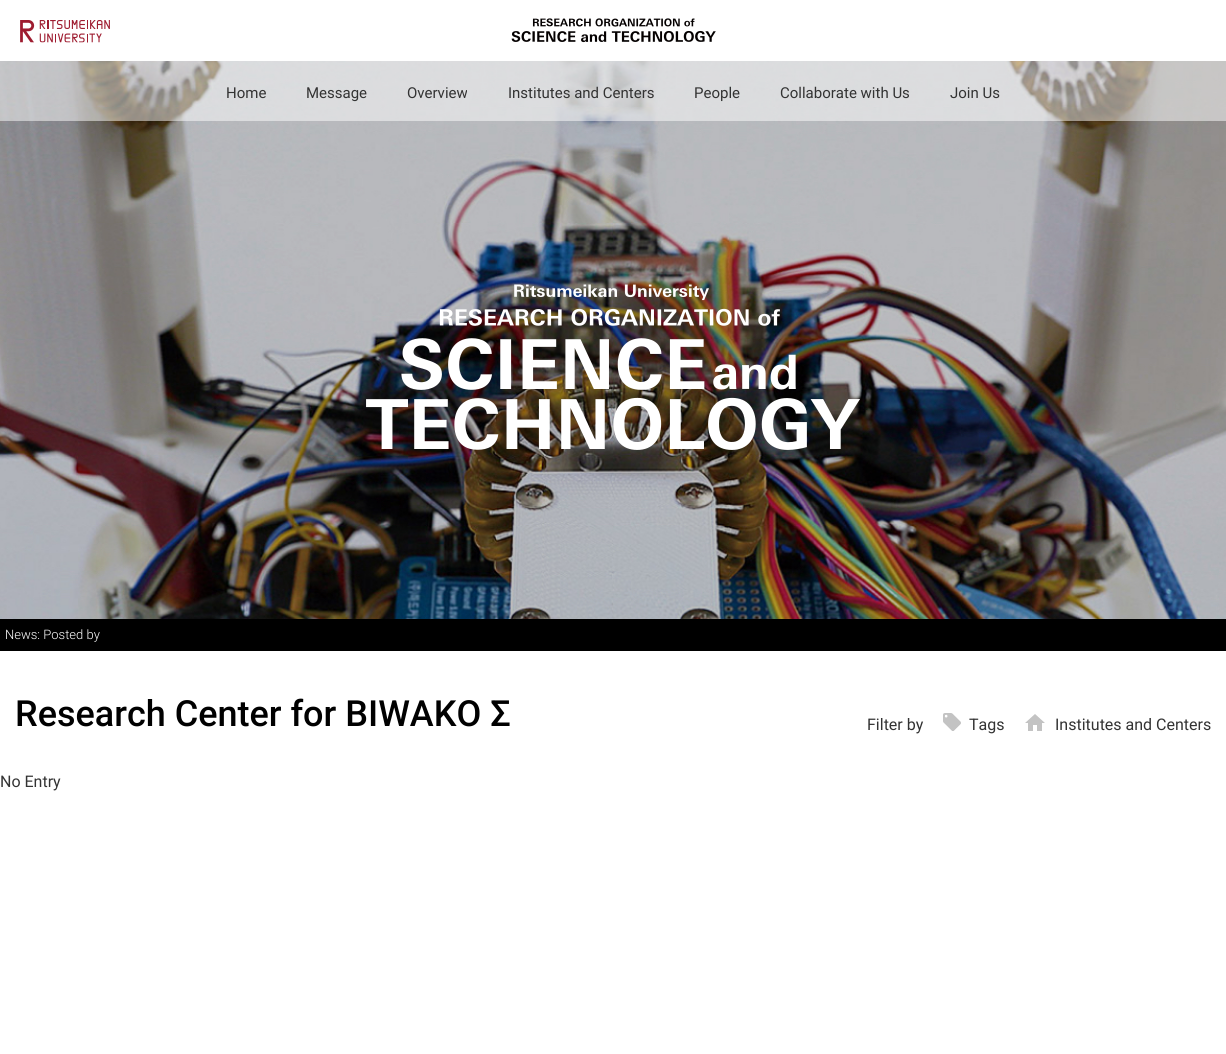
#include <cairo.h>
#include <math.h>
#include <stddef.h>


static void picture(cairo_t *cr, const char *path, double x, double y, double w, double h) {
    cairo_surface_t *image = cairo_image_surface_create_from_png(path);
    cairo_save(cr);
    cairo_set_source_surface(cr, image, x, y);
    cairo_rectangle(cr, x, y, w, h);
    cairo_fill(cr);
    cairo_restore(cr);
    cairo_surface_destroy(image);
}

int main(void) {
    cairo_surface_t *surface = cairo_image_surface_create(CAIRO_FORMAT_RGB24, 1226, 1054);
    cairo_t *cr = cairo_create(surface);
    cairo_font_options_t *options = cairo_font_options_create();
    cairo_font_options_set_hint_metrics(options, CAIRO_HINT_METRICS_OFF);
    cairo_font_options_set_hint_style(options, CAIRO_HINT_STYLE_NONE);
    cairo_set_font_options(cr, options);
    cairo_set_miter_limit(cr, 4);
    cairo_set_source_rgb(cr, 1, 1, 1);
    cairo_paint(cr);
    picture(cr, "img1.png", 20, 20, 90, 23);
    picture(cr, "img2.png", 511, 18, 205, 25);
    picture(cr, "img3.png", 0, 61, 1226, 558);
    cairo_set_source_rgba(cr, 1, 1, 1, 0.5);
    cairo_rectangle(cr, 0, 61, 1226, 60);
    cairo_fill(cr);
    cairo_select_font_face(cr, "Roboto", CAIRO_FONT_SLANT_NORMAL, CAIRO_FONT_WEIGHT_NORMAL);
    cairo_set_font_size(cr, 15);
    cairo_set_source_rgb(cr, 0.2, 0.2, 0.2);
    cairo_move_to(cr, 226, 98);
    cairo_show_text(cr, "Home");
    cairo_move_to(cr, 306, 98);
    cairo_show_text(cr, "Message");
    cairo_move_to(cr, 407, 98);
    cairo_show_text(cr, "Overview");
    cairo_move_to(cr, 508, 98);
    cairo_show_text(cr, "Institutes and Centers");
    cairo_move_to(cr, 694, 98);
    cairo_show_text(cr, "People");
    cairo_move_to(cr, 780, 98);
    cairo_show_text(cr, "Collaborate with Us");
    cairo_move_to(cr, 950, 98);
    cairo_show_text(cr, "Join Us");
    picture(cr, "img4.png", 366, 284, 494, 166);
    cairo_set_source_rgb(cr, 0, 0, 0);
    cairo_rectangle(cr, 0, 619, 1226, 32);
    cairo_fill(cr);
    cairo_select_font_face(cr, "Roboto Light", CAIRO_FONT_SLANT_NORMAL, CAIRO_FONT_WEIGHT_NORMAL);
    cairo_set_font_size(cr, 13);
    cairo_set_source_rgb(cr, 1, 1, 1);
    cairo_move_to(cr, 5, 639);
    cairo_show_text(cr, "News: Posted by");
    cairo_select_font_face(cr, "Roboto Medium", CAIRO_FONT_SLANT_NORMAL, CAIRO_FONT_WEIGHT_NORMAL);
    cairo_set_font_size(cr, 36);
    cairo_set_source_rgb(cr, 0, 0, 0);
    cairo_move_to(cr, 15, 726);
    cairo_show_text(cr, "Research Center for BIWAKO Σ");
    cairo_select_font_face(cr, "Roboto", CAIRO_FONT_SLANT_NORMAL, CAIRO_FONT_WEIGHT_NORMAL);
    cairo_set_font_size(cr, 16);
    cairo_set_source_rgb(cr, 0.2, 0.2, 0.2);
    cairo_move_to(cr, 867, 730);
    cairo_show_text(cr, "Filter by");
    picture(cr, "img5.png", 943, 713, 18, 18);
    cairo_move_to(cr, 969, 730);
    cairo_show_text(cr, "Tags");
    picture(cr, "img6.png", 1025, 714, 20, 17);
    cairo_move_to(cr, 1055, 730);
    cairo_show_text(cr, "Institutes and Centers");
    cairo_move_to(cr, 0, 787);
    cairo_show_text(cr, "No Entry");
    cairo_surface_write_to_png(surface, "page.png");
    cairo_font_options_destroy(options);
    cairo_destroy(cr);
    cairo_surface_destroy(surface);
    return 0;
}
